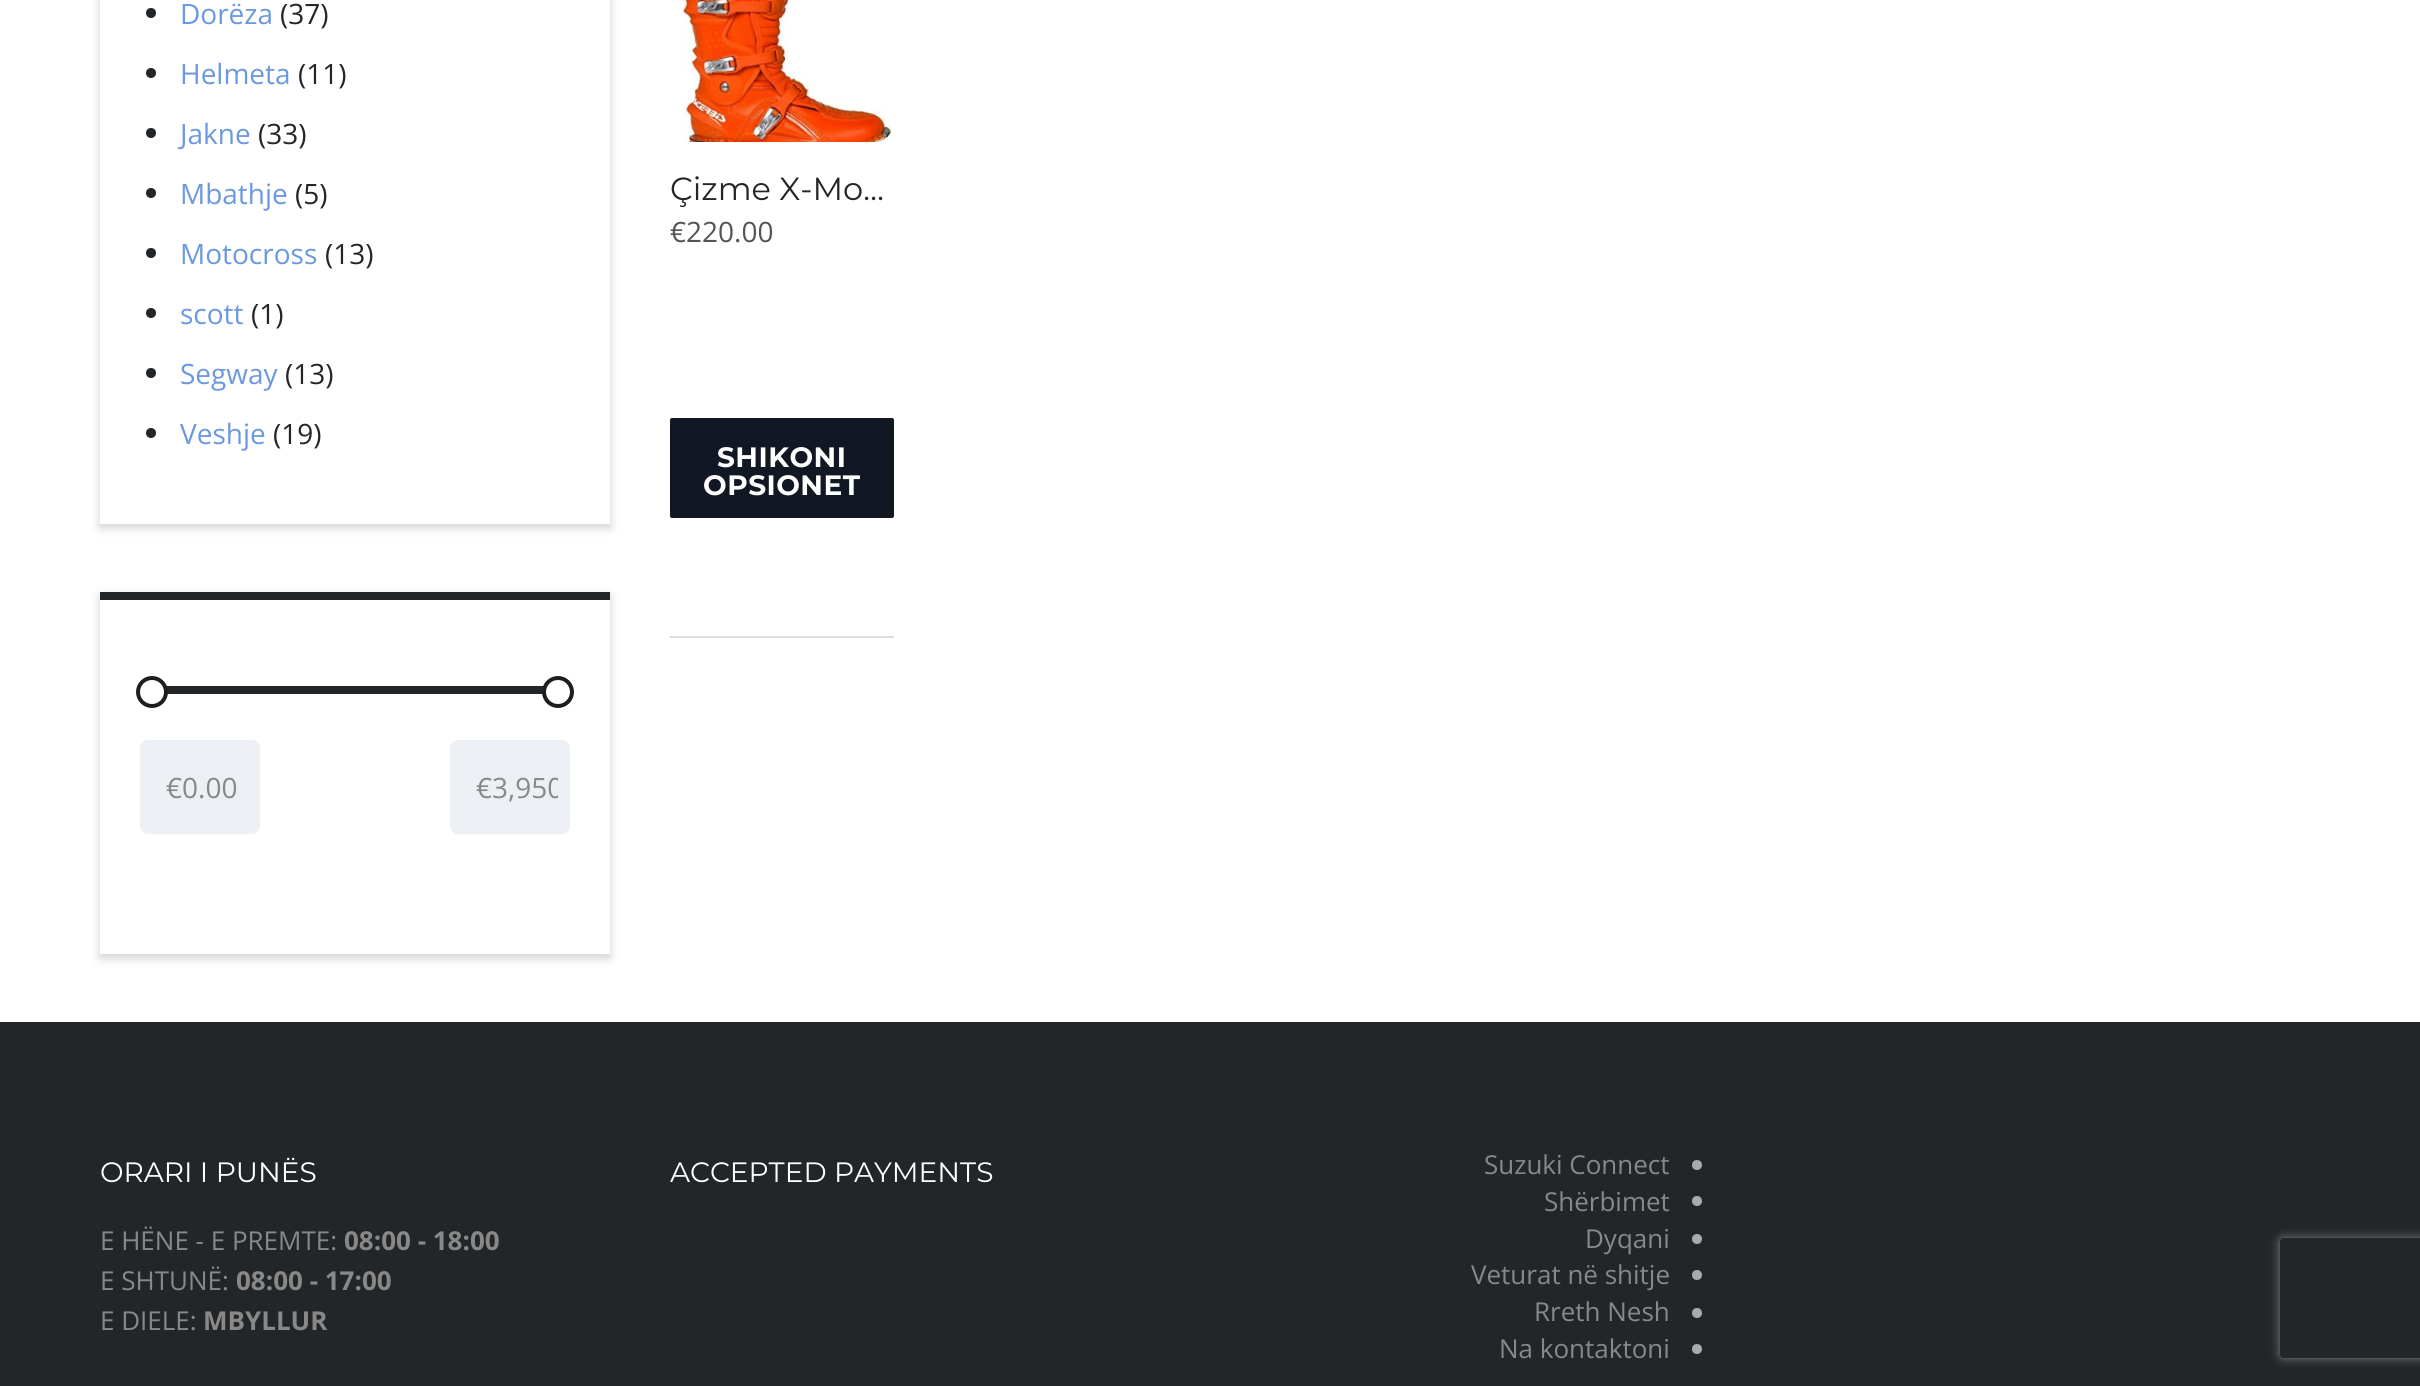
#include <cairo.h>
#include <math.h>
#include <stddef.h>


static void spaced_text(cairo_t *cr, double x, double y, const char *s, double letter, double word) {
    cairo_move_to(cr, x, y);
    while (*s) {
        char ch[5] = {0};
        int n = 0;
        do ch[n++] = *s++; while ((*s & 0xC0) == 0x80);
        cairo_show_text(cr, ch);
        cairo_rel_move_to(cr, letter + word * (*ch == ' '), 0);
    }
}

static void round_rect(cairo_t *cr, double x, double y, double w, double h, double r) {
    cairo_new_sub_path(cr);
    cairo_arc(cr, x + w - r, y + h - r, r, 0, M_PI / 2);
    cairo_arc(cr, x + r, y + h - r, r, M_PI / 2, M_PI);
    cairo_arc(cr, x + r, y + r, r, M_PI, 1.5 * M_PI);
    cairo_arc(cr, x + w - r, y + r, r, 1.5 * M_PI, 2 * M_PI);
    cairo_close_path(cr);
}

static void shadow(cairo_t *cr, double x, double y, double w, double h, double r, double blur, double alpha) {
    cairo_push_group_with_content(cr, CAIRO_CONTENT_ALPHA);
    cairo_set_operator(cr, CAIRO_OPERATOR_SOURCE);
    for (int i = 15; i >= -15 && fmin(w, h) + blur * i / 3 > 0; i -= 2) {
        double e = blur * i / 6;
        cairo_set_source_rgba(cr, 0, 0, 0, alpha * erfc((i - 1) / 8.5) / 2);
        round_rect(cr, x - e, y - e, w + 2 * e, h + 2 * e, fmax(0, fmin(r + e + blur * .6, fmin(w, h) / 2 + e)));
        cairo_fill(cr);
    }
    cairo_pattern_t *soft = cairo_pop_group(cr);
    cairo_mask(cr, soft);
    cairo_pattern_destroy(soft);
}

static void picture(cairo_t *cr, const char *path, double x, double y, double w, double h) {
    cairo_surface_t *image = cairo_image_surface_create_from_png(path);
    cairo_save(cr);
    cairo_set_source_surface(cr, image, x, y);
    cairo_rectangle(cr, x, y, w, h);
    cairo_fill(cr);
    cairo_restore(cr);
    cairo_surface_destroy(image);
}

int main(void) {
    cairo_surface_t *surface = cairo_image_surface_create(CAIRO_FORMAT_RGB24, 2420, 1386);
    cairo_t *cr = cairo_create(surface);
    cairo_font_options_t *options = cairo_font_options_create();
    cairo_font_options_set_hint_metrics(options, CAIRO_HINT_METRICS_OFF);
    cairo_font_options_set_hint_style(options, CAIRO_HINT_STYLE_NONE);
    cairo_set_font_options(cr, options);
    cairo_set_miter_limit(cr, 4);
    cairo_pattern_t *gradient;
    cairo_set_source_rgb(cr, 1, 1, 1);
    cairo_paint(cr);
    cairo_save(cr);
    cairo_set_fill_rule(cr, CAIRO_FILL_RULE_EVEN_ODD);
    cairo_new_path(cr);
    cairo_move_to(cr, 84, 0);
    cairo_line_to(cr, 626, 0);
    cairo_line_to(cr, 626, 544);
    cairo_line_to(cr, 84, 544);
    cairo_close_path(cr);
    cairo_move_to(cr, 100, -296);
    cairo_line_to(cr, 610, -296);
    cairo_line_to(cr, 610, 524);
    cairo_line_to(cr, 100, 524);
    cairo_close_path(cr);
    cairo_clip(cr);
    cairo_set_source_rgb(cr, 0, 0, 0);
    shadow(cr, 100, -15, 510, 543, 0, 5, 0.18);
    cairo_restore(cr);
    cairo_set_source_rgb(cr, 0.137, 0.149, 0.157);
    cairo_arc(cr, 151, 13, 5, 0, 2 * M_PI);
    cairo_fill(cr);
    cairo_select_font_face(cr, "Open Sans", CAIRO_FONT_SLANT_NORMAL, CAIRO_FONT_WEIGHT_NORMAL);
    cairo_set_font_size(cr, 28);
    cairo_set_source_rgb(cr, 0.424, 0.596, 0.882);
    cairo_move_to(cr, 180, 24);
    cairo_show_text(cr, "Dorëza");
    cairo_set_source_rgb(cr, 0.137, 0.149, 0.157);
    cairo_move_to(cr, 280, 24);
    cairo_show_text(cr, "(37)");
    cairo_new_path(cr);
    cairo_arc(cr, 151, 73, 5, 0, 2 * M_PI);
    cairo_fill(cr);
    cairo_set_source_rgb(cr, 0.424, 0.596, 0.882);
    cairo_move_to(cr, 180, 84);
    cairo_show_text(cr, "Helmeta");
    cairo_set_source_rgb(cr, 0.137, 0.149, 0.157);
    cairo_move_to(cr, 298, 84);
    cairo_show_text(cr, "(11)");
    cairo_new_path(cr);
    cairo_arc(cr, 151, 133, 5, 0, 2 * M_PI);
    cairo_fill(cr);
    cairo_set_source_rgb(cr, 0.424, 0.596, 0.882);
    cairo_move_to(cr, 180, 144);
    cairo_show_text(cr, "Jakne");
    cairo_set_source_rgb(cr, 0.137, 0.149, 0.157);
    cairo_move_to(cr, 258, 144);
    cairo_show_text(cr, "(33)");
    cairo_new_path(cr);
    cairo_arc(cr, 151, 193, 5, 0, 2 * M_PI);
    cairo_fill(cr);
    cairo_set_source_rgb(cr, 0.424, 0.596, 0.882);
    cairo_move_to(cr, 180, 204);
    cairo_show_text(cr, "Mbathje");
    cairo_set_source_rgb(cr, 0.137, 0.149, 0.157);
    cairo_move_to(cr, 295, 204);
    cairo_show_text(cr, "(5)");
    cairo_new_path(cr);
    cairo_arc(cr, 151, 253, 5, 0, 2 * M_PI);
    cairo_fill(cr);
    cairo_set_source_rgb(cr, 0.424, 0.596, 0.882);
    cairo_move_to(cr, 180, 264);
    cairo_show_text(cr, "Motocross");
    cairo_set_source_rgb(cr, 0.137, 0.149, 0.157);
    cairo_move_to(cr, 325, 264);
    cairo_show_text(cr, "(13)");
    cairo_new_path(cr);
    cairo_arc(cr, 151, 313, 5, 0, 2 * M_PI);
    cairo_fill(cr);
    cairo_set_source_rgb(cr, 0.424, 0.596, 0.882);
    cairo_move_to(cr, 180, 324);
    cairo_show_text(cr, "scott");
    cairo_set_source_rgb(cr, 0.137, 0.149, 0.157);
    cairo_move_to(cr, 251, 324);
    cairo_show_text(cr, "(1)");
    cairo_new_path(cr);
    cairo_arc(cr, 151, 373, 5, 0, 2 * M_PI);
    cairo_fill(cr);
    cairo_set_source_rgb(cr, 0.424, 0.596, 0.882);
    cairo_move_to(cr, 180, 384);
    cairo_show_text(cr, "Segway");
    cairo_set_source_rgb(cr, 0.137, 0.149, 0.157);
    cairo_move_to(cr, 285, 384);
    cairo_show_text(cr, "(13)");
    cairo_new_path(cr);
    cairo_arc(cr, 151, 433, 5, 0, 2 * M_PI);
    cairo_fill(cr);
    cairo_set_source_rgb(cr, 0.424, 0.596, 0.882);
    cairo_move_to(cr, 180, 444);
    cairo_show_text(cr, "Veshje");
    cairo_set_source_rgb(cr, 0.137, 0.149, 0.157);
    cairo_move_to(cr, 273, 444);
    cairo_show_text(cr, "(19)");
    cairo_save(cr);
    cairo_set_fill_rule(cr, CAIRO_FILL_RULE_EVEN_ODD);
    cairo_new_path(cr);
    cairo_move_to(cr, 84, 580);
    cairo_line_to(cr, 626, 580);
    cairo_line_to(cr, 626, 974);
    cairo_line_to(cr, 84, 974);
    cairo_close_path(cr);
    cairo_move_to(cr, 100, 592);
    cairo_line_to(cr, 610, 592);
    cairo_line_to(cr, 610, 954);
    cairo_line_to(cr, 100, 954);
    cairo_close_path(cr);
    cairo_clip(cr);
    cairo_set_source_rgb(cr, 0, 0, 0);
    shadow(cr, 100, 596, 510, 362, 0, 5, 0.18);
    cairo_restore(cr);
    cairo_rectangle(cr, 100, 592, 510, 8);
    cairo_fill(cr);
    gradient = cairo_pattern_create_linear(138, 690, 572, 690);
    cairo_pattern_add_color_stop_rgba(gradient, 0, 0.827, 0.831, 0.831, 1);
    cairo_pattern_add_color_stop_rgba(gradient, 0, 0.137, 0.149, 0.157, 1);
    cairo_pattern_add_color_stop_rgba(gradient, 1, 0.137, 0.149, 0.157, 1);
    cairo_pattern_add_color_stop_rgba(gradient, 1, 0.827, 0.831, 0.831, 1);
    cairo_set_source(cr, gradient);
    cairo_pattern_destroy(gradient);
    cairo_rectangle(cr, 166, 686, 378, 8);
    cairo_fill(cr);
    cairo_set_source_rgb(cr, 1, 1, 1);
    cairo_arc(cr, 152, 692, 14, 0, 2 * M_PI);
    cairo_fill_preserve(cr);
    cairo_set_source_rgb(cr, 0.118, 0.118, 0.118);
    cairo_set_line_width(cr, 4);
    cairo_stroke(cr);
    cairo_set_source_rgb(cr, 1, 1, 1);
    cairo_arc(cr, 558, 692, 14, 0, 2 * M_PI);
    cairo_fill_preserve(cr);
    cairo_set_source_rgb(cr, 0.118, 0.118, 0.118);
    cairo_stroke(cr);
    cairo_set_source_rgb(cr, 0.925, 0.937, 0.953);
    round_rect(cr, 140, 740, 120, 94, 8);
    cairo_fill(cr);
    cairo_set_source_rgb(cr, 0.533, 0.533, 0.533);
    cairo_move_to(cr, 166, 798);
    cairo_show_text(cr, "€0.00");
    cairo_set_source_rgb(cr, 0.925, 0.937, 0.953);
    round_rect(cr, 450, 740, 120, 94, 8);
    cairo_fill(cr);
    cairo_save(cr);
    cairo_rectangle(cr, 476, 740, 82, 94);
    cairo_clip(cr);
    cairo_set_source_rgb(cr, 0.533, 0.533, 0.533);
    cairo_move_to(cr, 476, 798);
    cairo_show_text(cr, "€3,950");
    cairo_restore(cr);
    cairo_set_source_rgb(cr, 0.867, 0.867, 0.867);
    cairo_rectangle(cr, 670, 636, 224, 2);
    cairo_fill(cr);
    picture(cr, "img1.png", 673, 0, 219, 142);
    cairo_select_font_face(cr, "Montserrat", CAIRO_FONT_SLANT_NORMAL, CAIRO_FONT_WEIGHT_NORMAL);
    cairo_set_font_size(cr, 32);
    cairo_set_source_rgb(cr, 0.137, 0.149, 0.157);
    cairo_move_to(cr, 670, 200);
    cairo_show_text(cr, "Çizme X-Mo…");
    cairo_select_font_face(cr, "Open Sans", CAIRO_FONT_SLANT_NORMAL, CAIRO_FONT_WEIGHT_NORMAL);
    cairo_set_font_size(cr, 28);
    cairo_set_source_rgb(cr, 0.333, 0.333, 0.333);
    cairo_move_to(cr, 670, 242);
    cairo_show_text(cr, "€220.00");
    cairo_set_source_rgb(cr, 0.067, 0.094, 0.141);
    round_rect(cr, 670, 418, 224, 100, 2);
    cairo_fill(cr);
    cairo_select_font_face(cr, "Montserrat", CAIRO_FONT_SLANT_NORMAL, CAIRO_FONT_WEIGHT_BOLD);
    cairo_set_source_rgb(cr, 1, 1, 1);
    spaced_text(cr, 717, 467, "SHIKONI", 0.5, 0);
    spaced_text(cr, 703, 495, "OPSIONET", 0.5, 0);
    cairo_set_source_rgb(cr, 0.137, 0.149, 0.157);
    cairo_rectangle(cr, 0, 1022, 2420, 364);
    cairo_fill(cr);
    cairo_select_font_face(cr, "Montserrat", CAIRO_FONT_SLANT_NORMAL, CAIRO_FONT_WEIGHT_NORMAL);
    cairo_set_source_rgb(cr, 1, 1, 1);
    cairo_move_to(cr, 100, 1182);
    cairo_show_text(cr, "ORARI I PUNËS");
    cairo_select_font_face(cr, "Open Sans", CAIRO_FONT_SLANT_NORMAL, CAIRO_FONT_WEIGHT_NORMAL);
    cairo_set_font_size(cr, 26);
    cairo_set_source_rgb(cr, 0.533, 0.533, 0.533);
    cairo_move_to(cr, 100, 1250);
    cairo_show_text(cr, "E HËNE - E PREMTE:");
    cairo_select_font_face(cr, "Open Sans", CAIRO_FONT_SLANT_NORMAL, CAIRO_FONT_WEIGHT_BOLD);
    cairo_move_to(cr, 344, 1250);
    cairo_show_text(cr, "08:00 - 18:00");
    cairo_select_font_face(cr, "Open Sans", CAIRO_FONT_SLANT_NORMAL, CAIRO_FONT_WEIGHT_NORMAL);
    cairo_move_to(cr, 100, 1290);
    cairo_show_text(cr, "E SHTUNË:");
    cairo_select_font_face(cr, "Open Sans", CAIRO_FONT_SLANT_NORMAL, CAIRO_FONT_WEIGHT_BOLD);
    cairo_move_to(cr, 236, 1290);
    cairo_show_text(cr, "08:00 - 17:00");
    cairo_select_font_face(cr, "Open Sans", CAIRO_FONT_SLANT_NORMAL, CAIRO_FONT_WEIGHT_NORMAL);
    cairo_move_to(cr, 100, 1330);
    cairo_show_text(cr, "E DIELE:");
    cairo_select_font_face(cr, "Open Sans", CAIRO_FONT_SLANT_NORMAL, CAIRO_FONT_WEIGHT_BOLD);
    cairo_move_to(cr, 203, 1330);
    cairo_show_text(cr, "MBYLLUR");
    cairo_select_font_face(cr, "Montserrat", CAIRO_FONT_SLANT_NORMAL, CAIRO_FONT_WEIGHT_NORMAL);
    cairo_set_font_size(cr, 28);
    cairo_set_source_rgb(cr, 1, 1, 1);
    cairo_move_to(cr, 670, 1182);
    cairo_show_text(cr, "ACCEPTED PAYMENTS");
    cairo_select_font_face(cr, "Open Sans", CAIRO_FONT_SLANT_NORMAL, CAIRO_FONT_WEIGHT_NORMAL);
    cairo_set_font_size(cr, 26);
    cairo_set_source_rgb(cr, 0.533, 0.533, 0.533);
    cairo_move_to(cr, 1484, 1174);
    cairo_show_text(cr, "Suzuki Connect");
    cairo_set_source_rgb(cr, 0.667, 0.667, 0.667);
    cairo_new_path(cr);
    cairo_arc(cr, 1697, 1165, 5, 0, 2 * M_PI);
    cairo_fill(cr);
    cairo_set_source_rgb(cr, 0.533, 0.533, 0.533);
    cairo_move_to(cr, 1544, 1211);
    cairo_show_text(cr, "Shërbimet");
    cairo_set_source_rgb(cr, 0.667, 0.667, 0.667);
    cairo_new_path(cr);
    cairo_arc(cr, 1697, 1201, 5, 0, 2 * M_PI);
    cairo_fill(cr);
    cairo_set_source_rgb(cr, 0.533, 0.533, 0.533);
    cairo_move_to(cr, 1585, 1248);
    cairo_show_text(cr, "Dyqani");
    cairo_set_source_rgb(cr, 0.667, 0.667, 0.667);
    cairo_new_path(cr);
    cairo_arc(cr, 1697, 1239, 5, 0, 2 * M_PI);
    cairo_fill(cr);
    cairo_set_source_rgb(cr, 0.533, 0.533, 0.533);
    cairo_move_to(cr, 1471, 1284);
    cairo_show_text(cr, "Veturat në shitje");
    cairo_set_source_rgb(cr, 0.667, 0.667, 0.667);
    cairo_new_path(cr);
    cairo_arc(cr, 1697, 1275, 5, 0, 2 * M_PI);
    cairo_fill(cr);
    cairo_set_source_rgb(cr, 0.533, 0.533, 0.533);
    cairo_move_to(cr, 1534, 1321);
    cairo_show_text(cr, "Rreth Nesh");
    cairo_set_source_rgb(cr, 0.667, 0.667, 0.667);
    cairo_new_path(cr);
    cairo_arc(cr, 1697, 1313, 5, 0, 2 * M_PI);
    cairo_fill(cr);
    cairo_set_source_rgb(cr, 0.533, 0.533, 0.533);
    cairo_move_to(cr, 1499, 1358);
    cairo_show_text(cr, "Na kontaktoni");
    cairo_set_source_rgb(cr, 0.667, 0.667, 0.667);
    cairo_new_path(cr);
    cairo_arc(cr, 1697, 1349, 5, 0, 2 * M_PI);
    cairo_fill(cr);
    cairo_save(cr);
    cairo_set_fill_rule(cr, CAIRO_FILL_RULE_EVEN_ODD);
    cairo_new_path(cr);
    cairo_move_to(cr, 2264, 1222);
    cairo_line_to(cr, 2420, 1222);
    cairo_line_to(cr, 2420, 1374);
    cairo_line_to(cr, 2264, 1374);
    cairo_close_path(cr);
    cairo_move_to(cr, 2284, 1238);
    cairo_line_to(cr, 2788, 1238);
    cairo_curve_to(cr, 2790, 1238, 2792, 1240, 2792, 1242);
    cairo_line_to(cr, 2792, 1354);
    cairo_curve_to(cr, 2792, 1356, 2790, 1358, 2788, 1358);
    cairo_line_to(cr, 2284, 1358);
    cairo_curve_to(cr, 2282, 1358, 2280, 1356, 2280, 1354);
    cairo_line_to(cr, 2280, 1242);
    cairo_curve_to(cr, 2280, 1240, 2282, 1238, 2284, 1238);
    cairo_close_path(cr);
    cairo_clip(cr);
    cairo_set_source_rgb(cr, 0.502, 0.502, 0.502);
    shadow(cr, 2280, 1238, 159, 120, 4, 5, 1);
    cairo_restore(cr);
    cairo_surface_write_to_png(surface, "page.png");
    cairo_font_options_destroy(options);
    cairo_destroy(cr);
    cairo_surface_destroy(surface);
    return 0;
}
